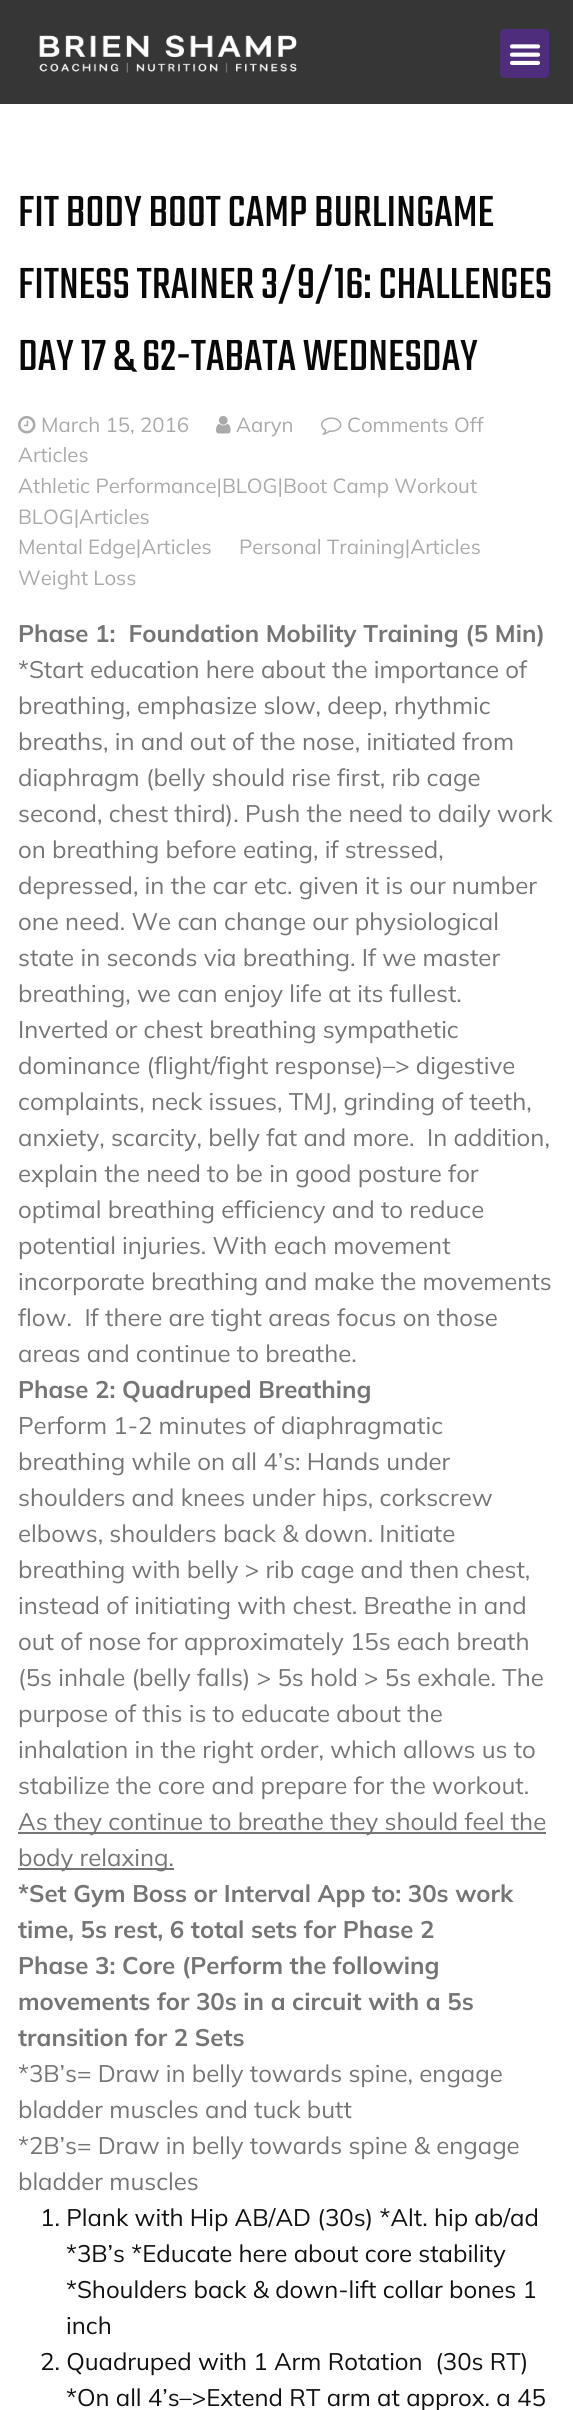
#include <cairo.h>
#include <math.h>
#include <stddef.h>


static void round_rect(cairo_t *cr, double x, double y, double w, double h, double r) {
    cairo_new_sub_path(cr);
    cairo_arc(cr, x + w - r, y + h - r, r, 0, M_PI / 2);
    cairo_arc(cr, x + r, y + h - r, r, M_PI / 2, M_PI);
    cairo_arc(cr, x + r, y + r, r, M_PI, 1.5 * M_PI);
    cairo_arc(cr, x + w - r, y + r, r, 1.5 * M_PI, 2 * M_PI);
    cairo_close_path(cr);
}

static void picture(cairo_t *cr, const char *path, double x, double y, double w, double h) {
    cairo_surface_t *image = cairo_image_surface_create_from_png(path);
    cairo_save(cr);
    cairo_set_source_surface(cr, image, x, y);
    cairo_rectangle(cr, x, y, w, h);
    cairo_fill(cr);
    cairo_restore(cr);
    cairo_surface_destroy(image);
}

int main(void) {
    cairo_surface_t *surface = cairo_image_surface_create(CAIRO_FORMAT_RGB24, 573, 2410);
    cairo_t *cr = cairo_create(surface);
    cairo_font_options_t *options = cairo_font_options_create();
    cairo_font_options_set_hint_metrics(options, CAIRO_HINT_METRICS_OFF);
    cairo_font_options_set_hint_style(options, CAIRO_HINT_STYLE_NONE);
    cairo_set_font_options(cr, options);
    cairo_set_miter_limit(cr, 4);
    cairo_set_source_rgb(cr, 1, 1, 1);
    cairo_paint(cr);
    cairo_set_source_rgb(cr, 0.212, 0.212, 0.212);
    cairo_rectangle(cr, 0, 0, 573, 104);
    cairo_fill(cr);
    picture(cr, "img1.png", 39, 35, 258, 38);
    cairo_set_source_rgb(cr, 0.306, 0.176, 0.486);
    round_rect(cr, 500, 29, 49, 49, 5);
    cairo_fill(cr);
    picture(cr, "img2.png", 509, 44, 32, 21);
    cairo_select_font_face(cr, "Teko", CAIRO_FONT_SLANT_NORMAL, CAIRO_FONT_WEIGHT_NORMAL);
    cairo_set_font_size(cr, 48);
    cairo_set_source_rgb(cr, 0.039, 0.039, 0.039);
    cairo_move_to(cr, 18, 226);
    cairo_show_text(cr, "FIT BODY BOOT CAMP BURLINGAME");
    cairo_move_to(cr, 18, 298);
    cairo_show_text(cr, "FITNESS TRAINER 3/9/16: CHALLENGES");
    cairo_move_to(cr, 18, 370);
    cairo_show_text(cr, "DAY 17 & 62-TABATA WEDNESDAY");
    picture(cr, "img3.png", 18, 416, 18, 18);
    cairo_select_font_face(cr, "Mulish", CAIRO_FONT_SLANT_NORMAL, CAIRO_FONT_WEIGHT_NORMAL);
    cairo_set_font_size(cr, 20.4);
    cairo_set_source_rgb(cr, 0.667, 0.667, 0.667);
    cairo_move_to(cr, 41, 432);
    cairo_show_text(cr, "March 15, 2016");
    picture(cr, "img4.png", 216, 416, 15, 18);
    cairo_move_to(cr, 236, 432);
    cairo_show_text(cr, "Aaryn");
    picture(cr, "img5.png", 321, 417, 21, 18);
    cairo_move_to(cr, 347, 432);
    cairo_show_text(cr, "Comments Off");
    cairo_move_to(cr, 18, 462);
    cairo_show_text(cr, "Articles");
    cairo_move_to(cr, 18, 493);
    cairo_show_text(cr, "Athletic Performance|BLOG|Boot Camp Workout");
    cairo_move_to(cr, 18, 524);
    cairo_show_text(cr, "BLOG|Articles");
    cairo_move_to(cr, 18, 554);
    cairo_show_text(cr, "Mental Edge|Articles");
    cairo_move_to(cr, 239, 554);
    cairo_show_text(cr, "Personal Training|Articles");
    cairo_move_to(cr, 18, 585);
    cairo_show_text(cr, "Weight Loss");
    cairo_select_font_face(cr, "Mulish", CAIRO_FONT_SLANT_NORMAL, CAIRO_FONT_WEIGHT_BOLD);
    cairo_set_font_size(cr, 24);
    cairo_set_source_rgb(cr, 0.459, 0.459, 0.459);
    cairo_move_to(cr, 18, 642);
    cairo_show_text(cr, "Phase 1:  Foundation Mobility Training (5 Min)");
    cairo_select_font_face(cr, "Mulish", CAIRO_FONT_SLANT_NORMAL, CAIRO_FONT_WEIGHT_NORMAL);
    cairo_move_to(cr, 18, 678);
    cairo_show_text(cr, "*Start education here about the importance of");
    cairo_move_to(cr, 18, 714);
    cairo_show_text(cr, "breathing, emphasize slow, deep, rhythmic");
    cairo_move_to(cr, 18, 750);
    cairo_show_text(cr, "breaths, in and out of the nose, initiated from");
    cairo_move_to(cr, 18, 786);
    cairo_show_text(cr, "diaphragm (belly should rise first, rib cage");
    cairo_move_to(cr, 18, 822);
    cairo_show_text(cr, "second, chest third). Push the need to daily work");
    cairo_move_to(cr, 18, 858);
    cairo_show_text(cr, "on breathing before eating, if stressed,");
    cairo_move_to(cr, 18, 894);
    cairo_show_text(cr, "depressed, in the car etc. given it is our number");
    cairo_move_to(cr, 18, 930);
    cairo_show_text(cr, "one need. We can change our physiological");
    cairo_move_to(cr, 18, 966);
    cairo_show_text(cr, "state in seconds via breathing. If we master");
    cairo_move_to(cr, 18, 1002);
    cairo_show_text(cr, "breathing, we can enjoy life at its fullest.");
    cairo_move_to(cr, 18, 1038);
    cairo_show_text(cr, "Inverted or chest breathing sympathetic");
    cairo_move_to(cr, 18, 1074);
    cairo_show_text(cr, "dominance (flight/fight response)–> digestive");
    cairo_move_to(cr, 18, 1110);
    cairo_show_text(cr, "complaints, neck issues, TMJ, grinding of teeth,");
    cairo_move_to(cr, 18, 1146);
    cairo_show_text(cr, "anxiety, scarcity, belly fat and more.  In addition,");
    cairo_move_to(cr, 18, 1182);
    cairo_show_text(cr, "explain the need to be in good posture for");
    cairo_move_to(cr, 18, 1218);
    cairo_show_text(cr, "optimal breathing efficiency and to reduce");
    cairo_move_to(cr, 18, 1254);
    cairo_show_text(cr, "potential injuries. With each movement");
    cairo_move_to(cr, 18, 1290);
    cairo_show_text(cr, "incorporate breathing and make the movements");
    cairo_move_to(cr, 18, 1326);
    cairo_show_text(cr, "flow.  If there are tight areas focus on those");
    cairo_move_to(cr, 18, 1362);
    cairo_show_text(cr, "areas and continue to breathe.");
    cairo_select_font_face(cr, "Mulish", CAIRO_FONT_SLANT_NORMAL, CAIRO_FONT_WEIGHT_BOLD);
    cairo_move_to(cr, 18, 1398);
    cairo_show_text(cr, "Phase 2: Quadruped Breathing");
    cairo_select_font_face(cr, "Mulish", CAIRO_FONT_SLANT_NORMAL, CAIRO_FONT_WEIGHT_NORMAL);
    cairo_move_to(cr, 18, 1434);
    cairo_show_text(cr, "Perform 1-2 minutes of diaphragmatic");
    cairo_move_to(cr, 18, 1470);
    cairo_show_text(cr, "breathing while on all 4’s: Hands under");
    cairo_move_to(cr, 18, 1506);
    cairo_show_text(cr, "shoulders and knees under hips, corkscrew");
    cairo_move_to(cr, 18, 1542);
    cairo_show_text(cr, "elbows, shoulders back & down. Initiate");
    cairo_move_to(cr, 18, 1578);
    cairo_show_text(cr, "breathing with belly > rib cage and then chest,");
    cairo_move_to(cr, 18, 1614);
    cairo_show_text(cr, "instead of initiating with chest. Breathe in and");
    cairo_move_to(cr, 18, 1650);
    cairo_show_text(cr, "out of nose for approximately 15s each breath");
    cairo_move_to(cr, 18, 1686);
    cairo_show_text(cr, "(5s inhale (belly falls) > 5s hold > 5s exhale. The");
    cairo_move_to(cr, 18, 1722);
    cairo_show_text(cr, "purpose of this is to educate about the");
    cairo_move_to(cr, 18, 1758);
    cairo_show_text(cr, "inhalation in the right order, which allows us to");
    cairo_move_to(cr, 18, 1794);
    cairo_show_text(cr, "stabilize the core and prepare for the workout.");
    cairo_rectangle(cr, 18, 1832, 528, 2);
    cairo_fill(cr);
    cairo_move_to(cr, 18, 1830);
    cairo_show_text(cr, "As they continue to breathe they should feel the");
    cairo_rectangle(cr, 18, 1868, 156, 2);
    cairo_fill(cr);
    cairo_move_to(cr, 18, 1866);
    cairo_show_text(cr, "body relaxing.");
    cairo_select_font_face(cr, "Mulish", CAIRO_FONT_SLANT_NORMAL, CAIRO_FONT_WEIGHT_BOLD);
    cairo_move_to(cr, 18, 1902);
    cairo_show_text(cr, "*Set Gym Boss or Interval App to: 30s work");
    cairo_move_to(cr, 18, 1938);
    cairo_show_text(cr, "time, 5s rest, 6 total sets for Phase 2");
    cairo_move_to(cr, 18, 1974);
    cairo_show_text(cr, "Phase 3: Core (Perform the following");
    cairo_move_to(cr, 18, 2010);
    cairo_show_text(cr, "movements for 30s in a circuit with a 5s");
    cairo_move_to(cr, 18, 2046);
    cairo_show_text(cr, "transition for 2 Sets");
    cairo_select_font_face(cr, "Mulish", CAIRO_FONT_SLANT_NORMAL, CAIRO_FONT_WEIGHT_NORMAL);
    cairo_move_to(cr, 18, 2082);
    cairo_show_text(cr, "*3B’s= Draw in belly towards spine, engage");
    cairo_move_to(cr, 18, 2118);
    cairo_show_text(cr, "bladder muscles and tuck butt");
    cairo_move_to(cr, 18, 2154);
    cairo_show_text(cr, "*2B’s= Draw in belly towards spine & engage");
    cairo_move_to(cr, 18, 2190);
    cairo_show_text(cr, "bladder muscles");
    cairo_set_source_rgb(cr, 0.067, 0.067, 0.067);
    cairo_move_to(cr, 40, 2226);
    cairo_show_text(cr, "1. Plank with Hip AB/AD (30s) *Alt. hip ab/ad");
    cairo_move_to(cr, 66, 2262);
    cairo_show_text(cr, "*3B’s *Educate here about core stability");
    cairo_move_to(cr, 66, 2298);
    cairo_show_text(cr, "*Shoulders back & down-lift collar bones 1");
    cairo_move_to(cr, 66, 2334);
    cairo_show_text(cr, "inch");
    cairo_move_to(cr, 40, 2370);
    cairo_show_text(cr, "2. Quadruped with 1 Arm Rotation  (30s RT)");
    cairo_move_to(cr, 66, 2406);
    cairo_show_text(cr, "*On all 4’s–>Extend RT arm at approx. a 45");
    cairo_surface_write_to_png(surface, "page.png");
    cairo_font_options_destroy(options);
    cairo_destroy(cr);
    cairo_surface_destroy(surface);
    return 0;
}
